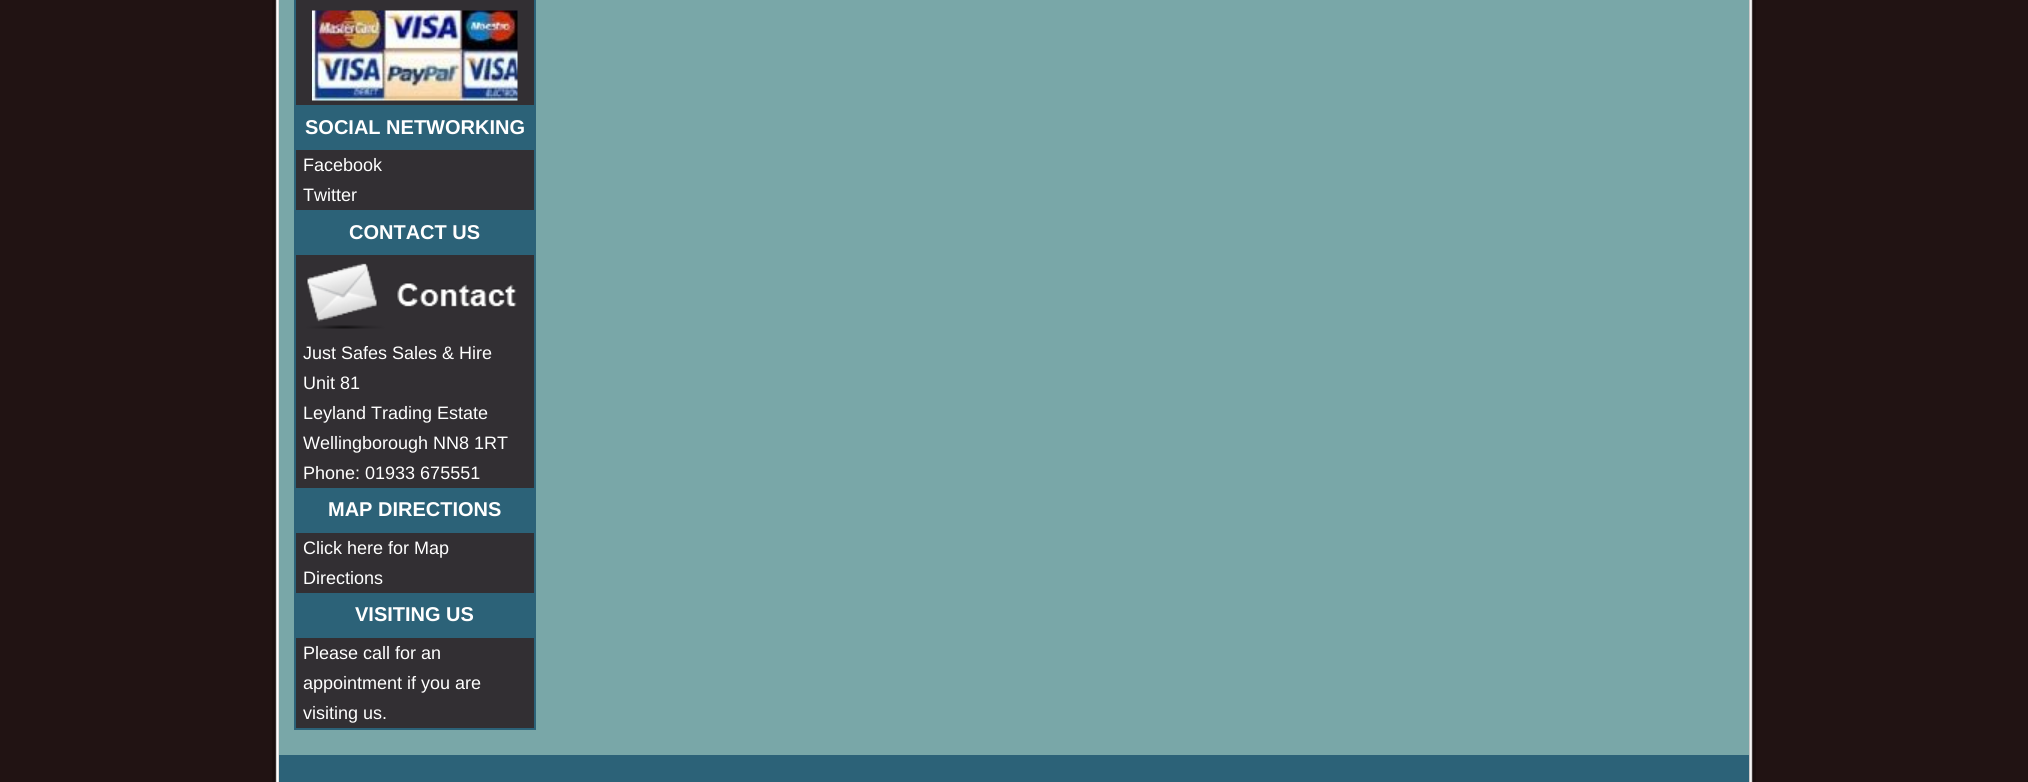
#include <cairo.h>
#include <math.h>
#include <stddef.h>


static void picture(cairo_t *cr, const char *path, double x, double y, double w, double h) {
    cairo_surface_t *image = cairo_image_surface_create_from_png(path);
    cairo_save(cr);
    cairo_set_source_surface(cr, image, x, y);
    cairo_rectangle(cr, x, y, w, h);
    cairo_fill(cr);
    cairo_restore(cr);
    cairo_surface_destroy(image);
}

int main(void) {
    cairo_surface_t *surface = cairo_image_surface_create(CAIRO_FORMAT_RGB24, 2028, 782);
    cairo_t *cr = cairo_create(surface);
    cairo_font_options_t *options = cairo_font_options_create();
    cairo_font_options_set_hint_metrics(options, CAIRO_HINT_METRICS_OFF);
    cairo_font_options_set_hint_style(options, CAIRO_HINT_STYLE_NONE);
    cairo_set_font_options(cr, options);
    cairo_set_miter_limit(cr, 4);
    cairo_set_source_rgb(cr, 0.129, 0.075, 0.075);
    cairo_paint(cr);
    picture(cr, "img1.png", 272, 0, 1484, 782);
    cairo_set_source_rgb(cr, 0.475, 0.655, 0.659);
    cairo_rectangle(cr, 279, 0, 1470, 755);
    cairo_fill(cr);
    cairo_set_source_rgb(cr, 0.173, 0.384, 0.471);
    cairo_rectangle(cr, 534, 0, 2, 728);
    cairo_fill(cr);
    cairo_rectangle(cr, 294, 0, 2, 728);
    cairo_fill(cr);
    cairo_set_source_rgb(cr, 0.196, 0.184, 0.2);
    cairo_rectangle(cr, 296, 0, 238, 105);
    cairo_fill(cr);
    picture(cr, "img2.png", 312, 10, 206, 91);
    cairo_set_source_rgb(cr, 0.173, 0.384, 0.471);
    cairo_rectangle(cr, 296, 105, 238, 45);
    cairo_fill(cr);
    cairo_select_font_face(cr, "Liberation Sans", CAIRO_FONT_SLANT_NORMAL, CAIRO_FONT_WEIGHT_BOLD);
    cairo_set_font_size(cr, 20);
    cairo_set_source_rgb(cr, 1, 1, 1);
    cairo_move_to(cr, 305, 134);
    cairo_show_text(cr, "SOCIAL NETWORKING");
    cairo_set_source_rgb(cr, 0.196, 0.184, 0.2);
    cairo_rectangle(cr, 296, 150, 238, 60);
    cairo_fill(cr);
    cairo_select_font_face(cr, "Liberation Sans", CAIRO_FONT_SLANT_NORMAL, CAIRO_FONT_WEIGHT_NORMAL);
    cairo_set_font_size(cr, 18);
    cairo_set_source_rgb(cr, 1, 1, 1);
    cairo_move_to(cr, 303, 171);
    cairo_show_text(cr, "Facebook");
    cairo_move_to(cr, 303, 201);
    cairo_show_text(cr, "Twitter");
    cairo_set_source_rgb(cr, 0.173, 0.384, 0.471);
    cairo_rectangle(cr, 296, 210, 238, 45);
    cairo_fill(cr);
    cairo_select_font_face(cr, "Liberation Sans", CAIRO_FONT_SLANT_NORMAL, CAIRO_FONT_WEIGHT_BOLD);
    cairo_set_font_size(cr, 20);
    cairo_set_source_rgb(cr, 1, 1, 1);
    cairo_move_to(cr, 349, 239);
    cairo_show_text(cr, "CONTACT US");
    cairo_set_source_rgb(cr, 0.196, 0.184, 0.2);
    cairo_rectangle(cr, 296, 255, 238, 233);
    cairo_fill(cr);
    picture(cr, "img3.png", 306, 263, 211, 66);
    cairo_select_font_face(cr, "Liberation Sans", CAIRO_FONT_SLANT_NORMAL, CAIRO_FONT_WEIGHT_NORMAL);
    cairo_set_font_size(cr, 18);
    cairo_set_source_rgb(cr, 1, 1, 1);
    cairo_move_to(cr, 303, 359);
    cairo_show_text(cr, "Just Safes Sales & Hire");
    cairo_move_to(cr, 303, 389);
    cairo_show_text(cr, "Unit 81");
    cairo_move_to(cr, 303, 419);
    cairo_show_text(cr, "Leyland Trading Estate");
    cairo_move_to(cr, 303, 449);
    cairo_show_text(cr, "Wellingborough NN8 1RT");
    cairo_move_to(cr, 303, 479);
    cairo_show_text(cr, "Phone: 01933 675551");
    cairo_set_source_rgb(cr, 0.173, 0.384, 0.471);
    cairo_rectangle(cr, 296, 488, 238, 45);
    cairo_fill(cr);
    cairo_select_font_face(cr, "Liberation Sans", CAIRO_FONT_SLANT_NORMAL, CAIRO_FONT_WEIGHT_BOLD);
    cairo_set_font_size(cr, 20);
    cairo_set_source_rgb(cr, 1, 1, 1);
    cairo_move_to(cr, 328, 516);
    cairo_show_text(cr, "MAP DIRECTIONS");
    cairo_set_source_rgb(cr, 0.196, 0.184, 0.2);
    cairo_rectangle(cr, 296, 533, 238, 60);
    cairo_fill(cr);
    cairo_select_font_face(cr, "Liberation Sans", CAIRO_FONT_SLANT_NORMAL, CAIRO_FONT_WEIGHT_NORMAL);
    cairo_set_font_size(cr, 18);
    cairo_set_source_rgb(cr, 1, 1, 1);
    cairo_move_to(cr, 303, 554);
    cairo_show_text(cr, "Click here for Map");
    cairo_move_to(cr, 303, 584);
    cairo_show_text(cr, "Directions");
    cairo_set_source_rgb(cr, 0.173, 0.384, 0.471);
    cairo_rectangle(cr, 296, 593, 238, 45);
    cairo_fill(cr);
    cairo_select_font_face(cr, "Liberation Sans", CAIRO_FONT_SLANT_NORMAL, CAIRO_FONT_WEIGHT_BOLD);
    cairo_set_font_size(cr, 20);
    cairo_set_source_rgb(cr, 1, 1, 1);
    cairo_move_to(cr, 355, 621);
    cairo_show_text(cr, "VISITING US");
    cairo_set_source_rgb(cr, 0.196, 0.184, 0.2);
    cairo_rectangle(cr, 296, 638, 238, 90);
    cairo_fill(cr);
    cairo_select_font_face(cr, "Liberation Sans", CAIRO_FONT_SLANT_NORMAL, CAIRO_FONT_WEIGHT_NORMAL);
    cairo_set_font_size(cr, 18);
    cairo_set_source_rgb(cr, 1, 1, 1);
    cairo_move_to(cr, 303, 659);
    cairo_show_text(cr, "Please call for an");
    cairo_move_to(cr, 303, 689);
    cairo_show_text(cr, "appointment if you are");
    cairo_move_to(cr, 303, 719);
    cairo_show_text(cr, "visiting us.");
    cairo_set_source_rgb(cr, 0.173, 0.384, 0.471);
    cairo_rectangle(cr, 294, 728, 242, 2);
    cairo_fill(cr);
    cairo_rectangle(cr, 279, 755, 1470, 27);
    cairo_fill(cr);
    cairo_surface_write_to_png(surface, "page.png");
    cairo_font_options_destroy(options);
    cairo_destroy(cr);
    cairo_surface_destroy(surface);
    return 0;
}
